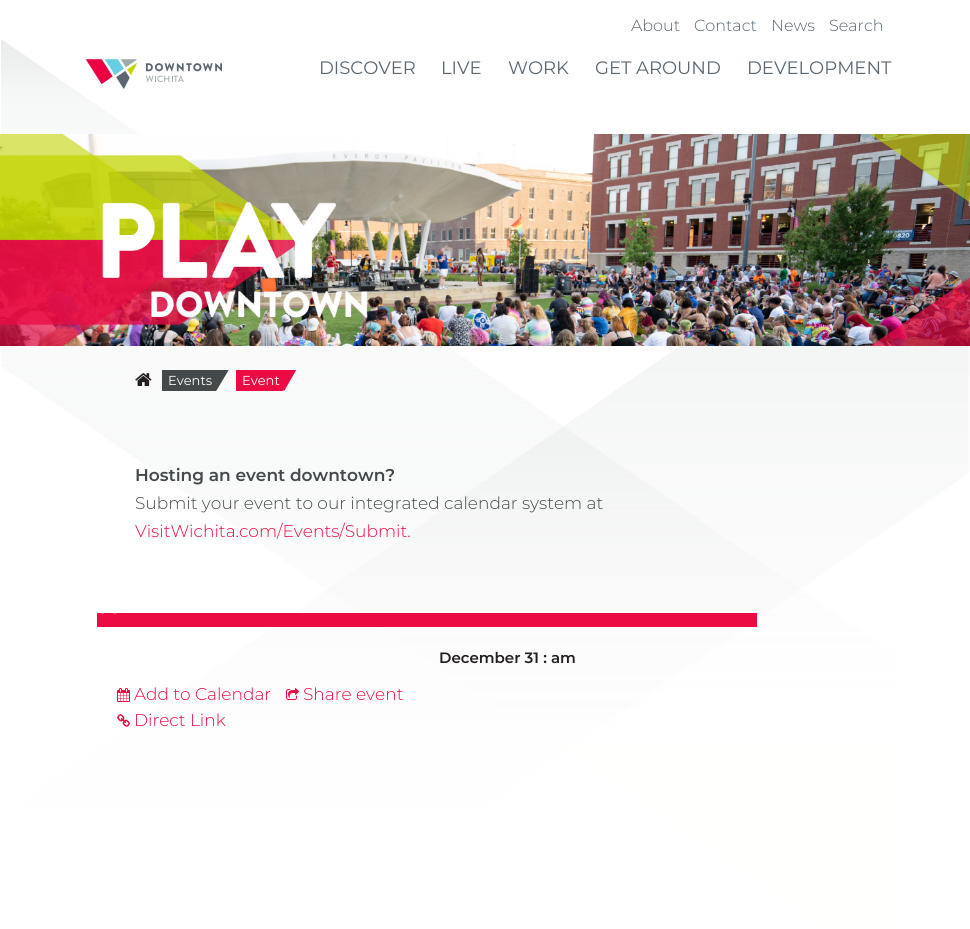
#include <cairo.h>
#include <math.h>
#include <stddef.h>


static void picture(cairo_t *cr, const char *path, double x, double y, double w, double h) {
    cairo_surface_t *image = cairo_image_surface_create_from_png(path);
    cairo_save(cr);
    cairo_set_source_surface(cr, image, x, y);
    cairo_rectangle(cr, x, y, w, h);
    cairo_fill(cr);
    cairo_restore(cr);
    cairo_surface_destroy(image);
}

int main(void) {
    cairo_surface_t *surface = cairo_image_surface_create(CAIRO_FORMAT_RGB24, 970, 929);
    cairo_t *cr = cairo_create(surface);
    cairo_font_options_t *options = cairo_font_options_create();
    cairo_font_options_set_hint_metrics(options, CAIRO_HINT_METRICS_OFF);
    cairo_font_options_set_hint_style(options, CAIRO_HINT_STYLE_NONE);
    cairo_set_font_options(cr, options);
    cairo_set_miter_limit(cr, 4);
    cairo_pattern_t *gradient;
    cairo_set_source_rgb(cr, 1, 1, 1);
    cairo_paint(cr);
    gradient = cairo_pattern_create_linear(485, 161, 485, 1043);
    cairo_pattern_add_color_stop_rgba(gradient, 0, 0.929, 0.937, 0.937, 1);
    cairo_pattern_add_color_stop_rgba(gradient, 0.19, 0.953, 0.961, 0.961, 1);
    cairo_pattern_add_color_stop_rgba(gradient, 0.39, 0.976, 0.98, 0.976, 1);
    cairo_pattern_add_color_stop_rgba(gradient, 0.58, 0.992, 0.992, 0.992, 1);
    cairo_pattern_add_color_stop_rgba(gradient, 0.78, 1, 1, 1, 1);
    cairo_pattern_add_color_stop_rgba(gradient, 1, 1, 1, 1, 1);
    cairo_set_source(cr, gradient);
    cairo_pattern_destroy(gradient);
    cairo_new_path(cr);
    cairo_move_to(cr, 969, 473);
    cairo_line_to(cr, 70, 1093);
    cairo_line_to(cr, 1, 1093);
    cairo_line_to(cr, 1, 815);
    cairo_line_to(cr, 969, 146);
    cairo_close_path(cr);
    cairo_fill(cr);
    gradient = cairo_pattern_create_linear(450, 36, 450, 745);
    cairo_pattern_add_color_stop_rgba(gradient, 0, 0.627, 0.675, 0.667, 0.25);
    cairo_pattern_add_color_stop_rgba(gradient, 0.01, 0.631, 0.678, 0.671, 0.22);
    cairo_pattern_add_color_stop_rgba(gradient, 0.04, 0.639, 0.682, 0.675, 0.18);
    cairo_pattern_add_color_stop_rgba(gradient, 0.06, 0.643, 0.686, 0.678, 0.14);
    cairo_pattern_add_color_stop_rgba(gradient, 0.09, 0.647, 0.69, 0.682, 0.1);
    cairo_pattern_add_color_stop_rgba(gradient, 0.13, 0.651, 0.694, 0.686, 0.08);
    cairo_pattern_add_color_stop_rgba(gradient, 0.18, 0.655, 0.698, 0.69, 0.06);
    cairo_pattern_add_color_stop_rgba(gradient, 0.24, 0.655, 0.698, 0.69, 0.05);
    cairo_pattern_add_color_stop_rgba(gradient, 0.41, 0.655, 0.698, 0.69, 0.05);
    cairo_pattern_add_color_stop_rgba(gradient, 0.5, 0.745, 0.776, 0.769, 0.1);
    cairo_pattern_add_color_stop_rgba(gradient, 0.59, 0.82, 0.843, 0.839, 0.15);
    cairo_pattern_add_color_stop_rgba(gradient, 0.68, 0.886, 0.898, 0.894, 0.18);
    cairo_pattern_add_color_stop_rgba(gradient, 0.77, 0.937, 0.945, 0.937, 0.21);
    cairo_pattern_add_color_stop_rgba(gradient, 0.85, 0.973, 0.976, 0.969, 0.23);
    cairo_pattern_add_color_stop_rgba(gradient, 0.93, 0.992, 0.992, 0.988, 0.24);
    cairo_pattern_add_color_stop_rgba(gradient, 1, 1, 1, 0.996, 0.25);
    cairo_set_source(cr, gradient);
    cairo_pattern_destroy(gradient);
    cairo_new_path(cr);
    cairo_move_to(cr, 1, 366);
    cairo_line_to(cr, 899, 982);
    cairo_line_to(cr, 899, 657);
    cairo_line_to(cr, 1, 39);
    cairo_close_path(cr);
    cairo_fill(cr);
    cairo_select_font_face(cr, "Montserrat Light", CAIRO_FONT_SLANT_NORMAL, CAIRO_FONT_WEIGHT_NORMAL);
    cairo_set_font_size(cr, 16);
    cairo_set_source_rgb(cr, 0.353, 0.404, 0.443);
    cairo_move_to(cr, 631, 31);
    cairo_show_text(cr, "About");
    cairo_move_to(cr, 694, 31);
    cairo_show_text(cr, "Contact");
    cairo_move_to(cr, 771, 31);
    cairo_show_text(cr, "News");
    cairo_move_to(cr, 829, 31);
    cairo_show_text(cr, "Search");
    picture(cr, "img1.png", 86, 59, 136, 30);
    cairo_select_font_face(cr, "Montserrat", CAIRO_FONT_SLANT_NORMAL, CAIRO_FONT_WEIGHT_NORMAL);
    cairo_set_font_size(cr, 18);
    cairo_move_to(cr, 319, 74);
    cairo_show_text(cr, "DISCOVER");
    cairo_move_to(cr, 441, 74);
    cairo_show_text(cr, "LIVE");
    cairo_move_to(cr, 508, 74);
    cairo_show_text(cr, "WORK");
    cairo_move_to(cr, 595, 74);
    cairo_show_text(cr, "GET AROUND");
    cairo_move_to(cr, 747, 74);
    cairo_show_text(cr, "DEVELOPMENT");
    picture(cr, "img2.png", 0, 134, 970, 212);
    picture(cr, "img3.png", 135, 373, 17, 13);
    cairo_save(cr);
    cairo_rectangle(cr, 135, 370, 700, 31);
    cairo_clip(cr);
    cairo_set_source_rgb(cr, 0.267, 0.29, 0.294);
    cairo_new_path(cr);
    cairo_move_to(cr, 208, 369.5);
    cairo_line_to(cr, 229, 369.5);
    cairo_line_to(cr, 216.5, 390.5);
    cairo_line_to(cr, 195.5, 390.5);
    cairo_close_path(cr);
    cairo_fill(cr);
    cairo_restore(cr);
    cairo_set_source_rgb(cr, 0.267, 0.29, 0.294);
    cairo_rectangle(cr, 162, 370, 54, 21);
    cairo_fill(cr);
    cairo_set_font_size(cr, 13);
    cairo_set_source_rgb(cr, 1, 1, 1);
    cairo_move_to(cr, 168, 385);
    cairo_show_text(cr, "Events");
    cairo_save(cr);
    cairo_rectangle(cr, 135, 370, 700, 31);
    cairo_clip(cr);
    cairo_set_source_rgb(cr, 0.925, 0.043, 0.263);
    cairo_new_path(cr);
    cairo_move_to(cr, 275.5, 369.5);
    cairo_line_to(cr, 296.5, 369.5);
    cairo_line_to(cr, 284.5, 390.5);
    cairo_line_to(cr, 263.5, 390.5);
    cairo_close_path(cr);
    cairo_fill(cr);
    cairo_restore(cr);
    cairo_set_source_rgb(cr, 0.925, 0.043, 0.263);
    cairo_rectangle(cr, 236, 370, 47, 21);
    cairo_fill(cr);
    cairo_set_source_rgb(cr, 1, 1, 1);
    cairo_move_to(cr, 242, 385);
    cairo_show_text(cr, "Event");
    cairo_select_font_face(cr, "Montserrat SemiBold", CAIRO_FONT_SLANT_NORMAL, CAIRO_FONT_WEIGHT_NORMAL);
    cairo_set_font_size(cr, 17);
    cairo_set_source_rgb(cr, 0.267, 0.29, 0.294);
    cairo_move_to(cr, 135, 481);
    cairo_show_text(cr, "Hosting an event downtown?");
    cairo_select_font_face(cr, "Montserrat Light", CAIRO_FONT_SLANT_NORMAL, CAIRO_FONT_WEIGHT_NORMAL);
    cairo_move_to(cr, 135, 509);
    cairo_show_text(cr, "Submit your event to our integrated calendar system at");
    cairo_set_source_rgb(cr, 0.925, 0.043, 0.263);
    cairo_move_to(cr, 135, 537);
    cairo_show_text(cr, "VisitWichita.com/Events/Submit.");
    cairo_rectangle(cr, 97, 613, 660, 14);
    cairo_fill(cr);
    picture(cr, "img4.png", 101, 613, 16, 2);
    cairo_select_font_face(cr, "Montserrat SemiBold", CAIRO_FONT_SLANT_NORMAL, CAIRO_FONT_WEIGHT_NORMAL);
    cairo_set_font_size(cr, 15);
    cairo_set_source_rgb(cr, 0.137, 0.122, 0.125);
    cairo_move_to(cr, 439, 663);
    cairo_show_text(cr, "December 31 : am");
    picture(cr, "img5.png", 117, 688, 13, 14);
    cairo_select_font_face(cr, "Montserrat Light", CAIRO_FONT_SLANT_NORMAL, CAIRO_FONT_WEIGHT_NORMAL);
    cairo_set_font_size(cr, 17);
    cairo_set_source_rgb(cr, 0.925, 0.043, 0.263);
    cairo_move_to(cr, 134, 700);
    cairo_show_text(cr, "Add to Calendar");
    picture(cr, "img6.png", 286, 688, 13, 12);
    cairo_move_to(cr, 303, 700);
    cairo_show_text(cr, "Share event");
    picture(cr, "img7.png", 117, 714, 13, 13);
    cairo_move_to(cr, 134, 726);
    cairo_show_text(cr, "Direct Link");
    cairo_surface_write_to_png(surface, "page.png");
    cairo_font_options_destroy(options);
    cairo_destroy(cr);
    cairo_surface_destroy(surface);
    return 0;
}
